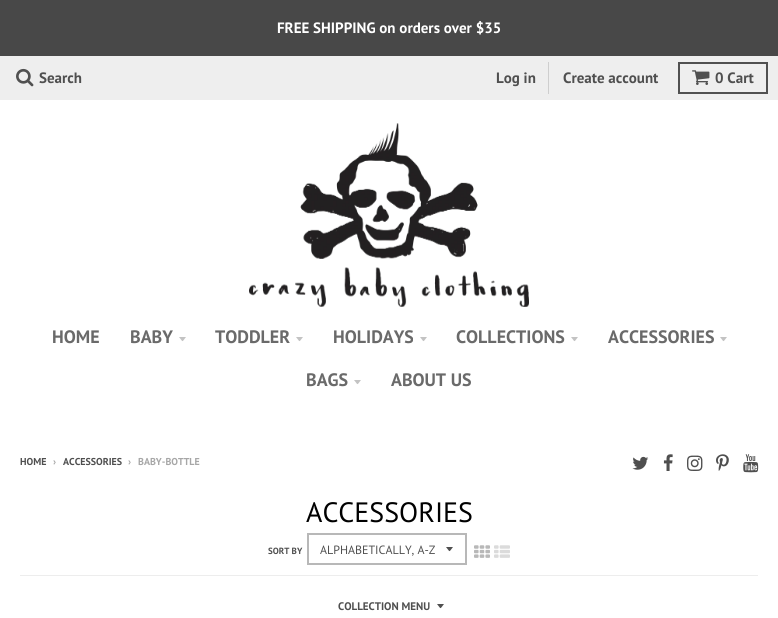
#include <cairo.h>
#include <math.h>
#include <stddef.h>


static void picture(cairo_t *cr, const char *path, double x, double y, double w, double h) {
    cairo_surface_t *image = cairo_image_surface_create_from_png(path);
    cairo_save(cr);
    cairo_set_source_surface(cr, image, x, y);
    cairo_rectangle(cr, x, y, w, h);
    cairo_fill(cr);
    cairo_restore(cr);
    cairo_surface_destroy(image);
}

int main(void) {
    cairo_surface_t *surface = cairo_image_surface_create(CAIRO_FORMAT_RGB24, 778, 618);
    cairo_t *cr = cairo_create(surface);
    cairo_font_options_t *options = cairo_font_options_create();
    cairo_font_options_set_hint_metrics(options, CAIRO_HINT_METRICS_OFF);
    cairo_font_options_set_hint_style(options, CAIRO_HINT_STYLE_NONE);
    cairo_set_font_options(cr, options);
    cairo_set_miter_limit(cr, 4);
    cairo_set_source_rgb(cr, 1, 1, 1);
    cairo_paint(cr);
    cairo_set_source_rgb(cr, 0.282, 0.282, 0.282);
    cairo_rectangle(cr, 0, 0, 778, 56);
    cairo_fill(cr);
    cairo_select_font_face(cr, "PT Sans", CAIRO_FONT_SLANT_NORMAL, CAIRO_FONT_WEIGHT_BOLD);
    cairo_set_font_size(cr, 15);
    cairo_set_source_rgb(cr, 1, 1, 1);
    cairo_move_to(cr, 277, 33);
    cairo_show_text(cr, "FREE SHIPPING on orders over $35");
    cairo_set_source_rgb(cr, 0.933, 0.933, 0.933);
    cairo_rectangle(cr, 0, 56, 778, 44);
    cairo_fill(cr);
    picture(cr, "img1.png", 16, 68, 18, 19);
    cairo_set_source_rgb(cr, 0.31, 0.31, 0.31);
    cairo_move_to(cr, 39, 83);
    cairo_show_text(cr, "Search");
    cairo_set_source_rgb(cr, 0.808, 0.808, 0.808);
    cairo_rectangle(cr, 548, 62, 1, 32);
    cairo_fill(cr);
    cairo_set_source_rgb(cr, 0.31, 0.31, 0.31);
    cairo_move_to(cr, 496, 83);
    cairo_show_text(cr, "Log in");
    cairo_move_to(cr, 563, 83);
    cairo_show_text(cr, "Create account");
    cairo_rectangle(cr, 679, 63, 88, 30);
    cairo_set_source_rgb(cr, 0.314, 0.314, 0.314);
    cairo_stroke(cr);
    picture(cr, "img2.png", 692, 70, 18, 15);
    cairo_set_source_rgb(cr, 0.31, 0.31, 0.31);
    cairo_move_to(cr, 715, 83);
    cairo_show_text(cr, "0 Cart");
    picture(cr, "img3.png", 249, 123, 280, 184);
    cairo_set_font_size(cr, 18);
    cairo_set_source_rgb(cr, 0.416, 0.416, 0.416);
    cairo_move_to(cr, 52, 343);
    cairo_show_text(cr, "HOME");
    cairo_move_to(cr, 130, 343);
    cairo_show_text(cr, "BABY");
    cairo_set_source_rgb(cr, 0.765, 0.765, 0.765);
    cairo_new_path(cr);
    cairo_move_to(cr, 179, 337);
    cairo_curve_to(cr, 183.5, 342.5, 181.5, 342.5, 186, 337);
    cairo_close_path(cr);
    cairo_fill(cr);
    cairo_set_source_rgb(cr, 0.416, 0.416, 0.416);
    cairo_move_to(cr, 215, 343);
    cairo_show_text(cr, "TODDLER");
    cairo_set_source_rgb(cr, 0.765, 0.765, 0.765);
    cairo_new_path(cr);
    cairo_move_to(cr, 296, 337);
    cairo_curve_to(cr, 300.5, 342.5, 298.5, 342.5, 303, 337);
    cairo_close_path(cr);
    cairo_fill(cr);
    cairo_set_source_rgb(cr, 0.416, 0.416, 0.416);
    cairo_move_to(cr, 333, 343);
    cairo_show_text(cr, "HOLIDAYS");
    cairo_set_source_rgb(cr, 0.765, 0.765, 0.765);
    cairo_new_path(cr);
    cairo_move_to(cr, 420, 337);
    cairo_curve_to(cr, 424.5, 342.5, 422.5, 342.5, 427, 337);
    cairo_close_path(cr);
    cairo_fill(cr);
    cairo_set_source_rgb(cr, 0.416, 0.416, 0.416);
    cairo_move_to(cr, 456, 343);
    cairo_show_text(cr, "COLLECTIONS");
    cairo_set_source_rgb(cr, 0.765, 0.765, 0.765);
    cairo_new_path(cr);
    cairo_move_to(cr, 571, 337);
    cairo_curve_to(cr, 575.5, 342.5, 573.5, 342.5, 578, 337);
    cairo_close_path(cr);
    cairo_fill(cr);
    cairo_set_source_rgb(cr, 0.416, 0.416, 0.416);
    cairo_move_to(cr, 608, 343);
    cairo_show_text(cr, "ACCESSORIES");
    cairo_set_source_rgb(cr, 0.765, 0.765, 0.765);
    cairo_new_path(cr);
    cairo_move_to(cr, 720, 337);
    cairo_curve_to(cr, 724.5, 342.5, 722.5, 342.5, 727, 337);
    cairo_close_path(cr);
    cairo_fill(cr);
    cairo_set_source_rgb(cr, 0.416, 0.416, 0.416);
    cairo_move_to(cr, 306, 386);
    cairo_show_text(cr, "BAGS");
    cairo_set_source_rgb(cr, 0.765, 0.765, 0.765);
    cairo_new_path(cr);
    cairo_move_to(cr, 354, 380);
    cairo_curve_to(cr, 358.5, 385.5, 356.5, 385.5, 361, 380);
    cairo_close_path(cr);
    cairo_fill(cr);
    cairo_set_source_rgb(cr, 0.416, 0.416, 0.416);
    cairo_move_to(cr, 391, 386);
    cairo_show_text(cr, "ABOUT US");
    cairo_set_font_size(cr, 10);
    cairo_set_source_rgb(cr, 0.31, 0.31, 0.31);
    cairo_move_to(cr, 20, 465);
    cairo_show_text(cr, "HOME");
    cairo_set_source_rgb(cr, 0.655, 0.655, 0.655);
    cairo_move_to(cr, 53, 465);
    cairo_show_text(cr, "›");
    cairo_set_source_rgb(cr, 0.31, 0.31, 0.31);
    cairo_move_to(cr, 63, 465);
    cairo_show_text(cr, "ACCESSORIES");
    cairo_set_source_rgb(cr, 0.655, 0.655, 0.655);
    cairo_move_to(cr, 128, 465);
    cairo_show_text(cr, "›");
    cairo_move_to(cr, 138, 465);
    cairo_show_text(cr, "BABY-BOTTLE");
    picture(cr, "img4.png", 632, 456, 17, 14);
    picture(cr, "img5.png", 663, 454, 10, 17);
    picture(cr, "img6.png", 687, 455, 16, 16);
    picture(cr, "img7.png", 716, 454, 13, 17);
    picture(cr, "img8.png", 743, 454, 16, 19);
    cairo_set_source_rgb(cr, 0.929, 0.929, 0.929);
    cairo_rectangle(cr, 20, 575, 738, 1);
    cairo_fill(cr);
    cairo_select_font_face(cr, "PT Sans", CAIRO_FONT_SLANT_NORMAL, CAIRO_FONT_WEIGHT_NORMAL);
    cairo_set_font_size(cr, 28);
    cairo_set_source_rgb(cr, 0, 0, 0);
    cairo_move_to(cr, 306, 522);
    cairo_show_text(cr, "ACCESSORIES");
    cairo_select_font_face(cr, "PT Sans", CAIRO_FONT_SLANT_NORMAL, CAIRO_FONT_WEIGHT_BOLD);
    cairo_set_font_size(cr, 9);
    cairo_set_source_rgb(cr, 0.31, 0.31, 0.31);
    cairo_move_to(cr, 268, 554);
    cairo_show_text(cr, "SORT BY");
    cairo_new_path(cr);
    cairo_move_to(cr, 446, 547);
    cairo_curve_to(cr, 450.5, 552.5, 448.5, 552.5, 453, 547);
    cairo_close_path(cr);
    cairo_fill(cr);
    cairo_rectangle(cr, 308, 534, 158, 30);
    cairo_set_source_rgb(cr, 0.722, 0.722, 0.722);
    cairo_stroke(cr);
    cairo_select_font_face(cr, "PT Sans", CAIRO_FONT_SLANT_NORMAL, CAIRO_FONT_WEIGHT_NORMAL);
    cairo_set_font_size(cr, 12);
    cairo_set_source_rgb(cr, 0.31, 0.31, 0.31);
    cairo_move_to(cr, 320, 554);
    cairo_show_text(cr, "ALPHABETICALLY, A-Z");
    picture(cr, "img9.png", 474, 545, 16, 13);
    picture(cr, "img10.png", 494, 545, 16, 13);
    cairo_select_font_face(cr, "PT Sans", CAIRO_FONT_SLANT_NORMAL, CAIRO_FONT_WEIGHT_BOLD);
    cairo_set_font_size(cr, 11);
    cairo_move_to(cr, 338, 610);
    cairo_show_text(cr, "COLLECTION MENU");
    cairo_new_path(cr);
    cairo_move_to(cr, 437, 604);
    cairo_curve_to(cr, 441.5, 609.5, 439.5, 609.5, 444, 604);
    cairo_close_path(cr);
    cairo_fill(cr);
    cairo_surface_write_to_png(surface, "page.png");
    cairo_font_options_destroy(options);
    cairo_destroy(cr);
    cairo_surface_destroy(surface);
    return 0;
}
